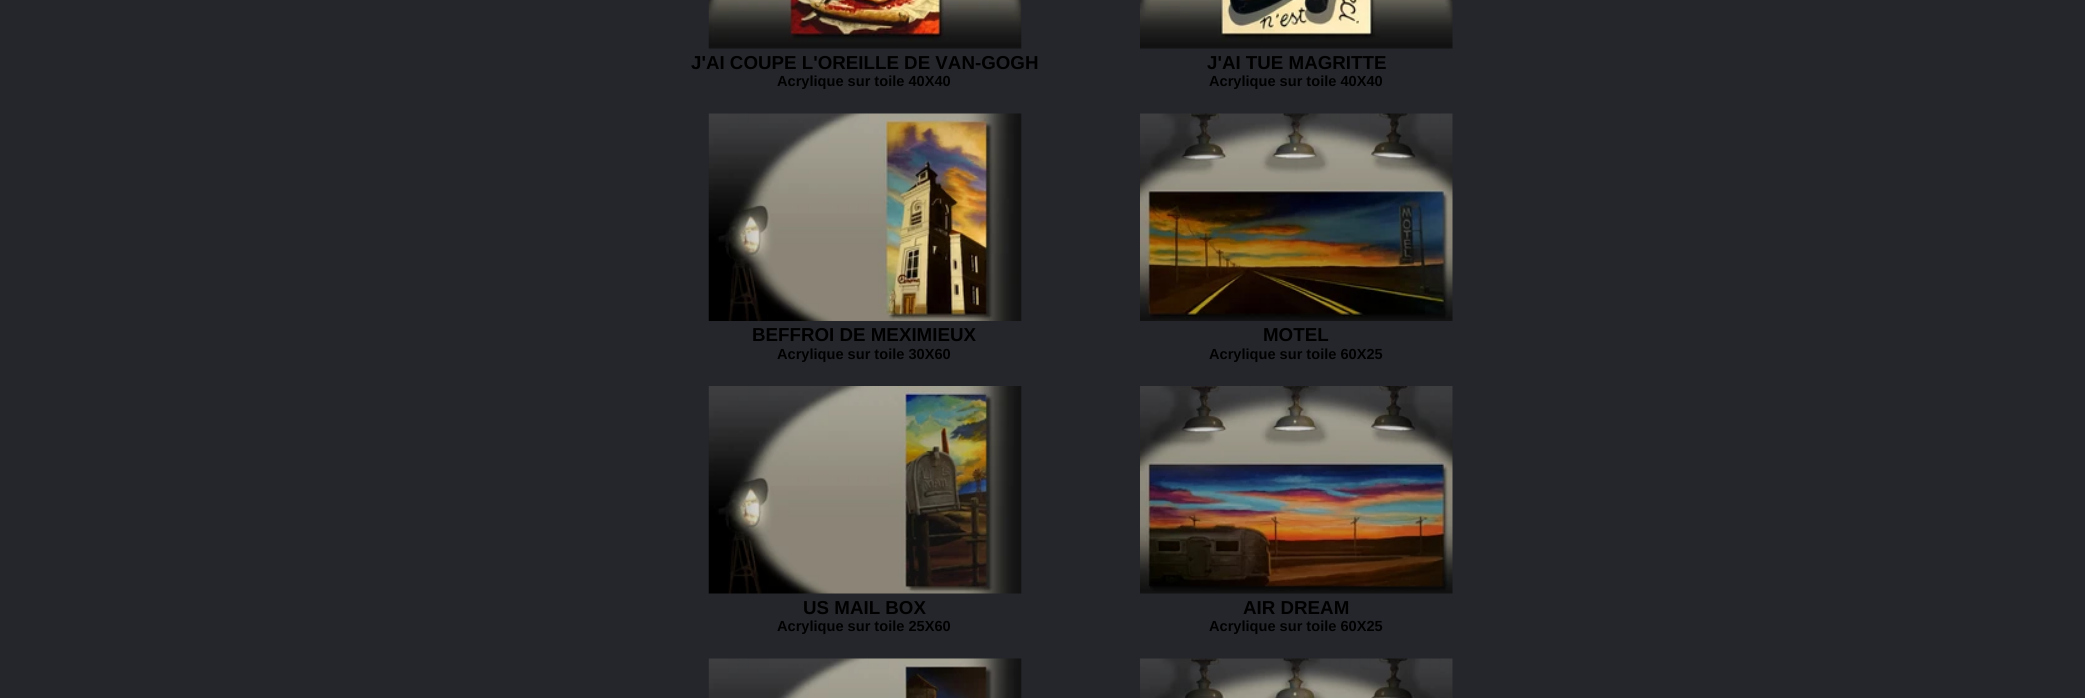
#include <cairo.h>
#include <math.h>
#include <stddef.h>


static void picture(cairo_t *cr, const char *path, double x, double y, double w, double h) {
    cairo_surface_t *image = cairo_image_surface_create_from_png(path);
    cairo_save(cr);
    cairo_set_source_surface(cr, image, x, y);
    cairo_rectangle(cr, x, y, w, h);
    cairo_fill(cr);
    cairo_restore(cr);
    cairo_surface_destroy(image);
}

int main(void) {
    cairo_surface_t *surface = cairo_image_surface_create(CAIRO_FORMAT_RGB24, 2085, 698);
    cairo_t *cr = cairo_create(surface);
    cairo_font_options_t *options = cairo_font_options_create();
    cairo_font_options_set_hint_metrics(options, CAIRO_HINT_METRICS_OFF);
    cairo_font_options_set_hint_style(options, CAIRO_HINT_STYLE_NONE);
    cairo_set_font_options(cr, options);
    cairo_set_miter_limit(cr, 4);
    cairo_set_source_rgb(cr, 0.141, 0.149, 0.169);
    cairo_paint(cr);
    picture(cr, "img1.png", 708, 0, 314, 49);
    cairo_select_font_face(cr, "Liberation Sans", CAIRO_FONT_SLANT_NORMAL, CAIRO_FONT_WEIGHT_BOLD);
    cairo_set_font_size(cr, 18.75);
    cairo_set_source_rgb(cr, 0, 0, 0);
    cairo_move_to(cr, 691, 69);
    cairo_show_text(cr, "J'AI COUPE L'OREILLE DE VAN-GOGH");
    cairo_set_font_size(cr, 14.6);
    cairo_move_to(cr, 777, 86);
    cairo_show_text(cr, "Acrylique sur toile 40X40");
    picture(cr, "img2.png", 1140, 0, 313, 49);
    cairo_set_font_size(cr, 18.75);
    cairo_move_to(cr, 1207, 69);
    cairo_show_text(cr, "J'AI TUE MAGRITTE");
    cairo_set_font_size(cr, 14.6);
    cairo_move_to(cr, 1209, 86);
    cairo_show_text(cr, "Acrylique sur toile 40X40");
    picture(cr, "img3.png", 708, 113, 314, 208);
    cairo_set_font_size(cr, 18.75);
    cairo_move_to(cr, 752, 341);
    cairo_show_text(cr, "BEFFROI DE MEXIMIEUX");
    cairo_set_font_size(cr, 14.6);
    cairo_move_to(cr, 777, 359);
    cairo_show_text(cr, "Acrylique sur toile 30X60");
    picture(cr, "img4.png", 1140, 113, 313, 208);
    cairo_set_font_size(cr, 18.75);
    cairo_move_to(cr, 1263, 341);
    cairo_show_text(cr, "MOTEL");
    cairo_set_font_size(cr, 14.6);
    cairo_move_to(cr, 1209, 359);
    cairo_show_text(cr, "Acrylique sur toile 60X25");
    picture(cr, "img5.png", 708, 386, 314, 208);
    cairo_set_font_size(cr, 18.75);
    cairo_move_to(cr, 803, 614);
    cairo_show_text(cr, "US MAIL BOX");
    cairo_set_font_size(cr, 14.6);
    cairo_move_to(cr, 777, 631);
    cairo_show_text(cr, "Acrylique sur toile 25X60");
    picture(cr, "img6.png", 1140, 386, 313, 208);
    cairo_set_font_size(cr, 18.75);
    cairo_move_to(cr, 1243, 614);
    cairo_show_text(cr, "AIR DREAM");
    cairo_set_font_size(cr, 14.6);
    cairo_move_to(cr, 1209, 631);
    cairo_show_text(cr, "Acrylique sur toile 60X25");
    picture(cr, "img7.png", 708, 658, 314, 40);
    picture(cr, "img8.png", 1140, 658, 313, 40);
    cairo_surface_write_to_png(surface, "page.png");
    cairo_font_options_destroy(options);
    cairo_destroy(cr);
    cairo_surface_destroy(surface);
    return 0;
}
